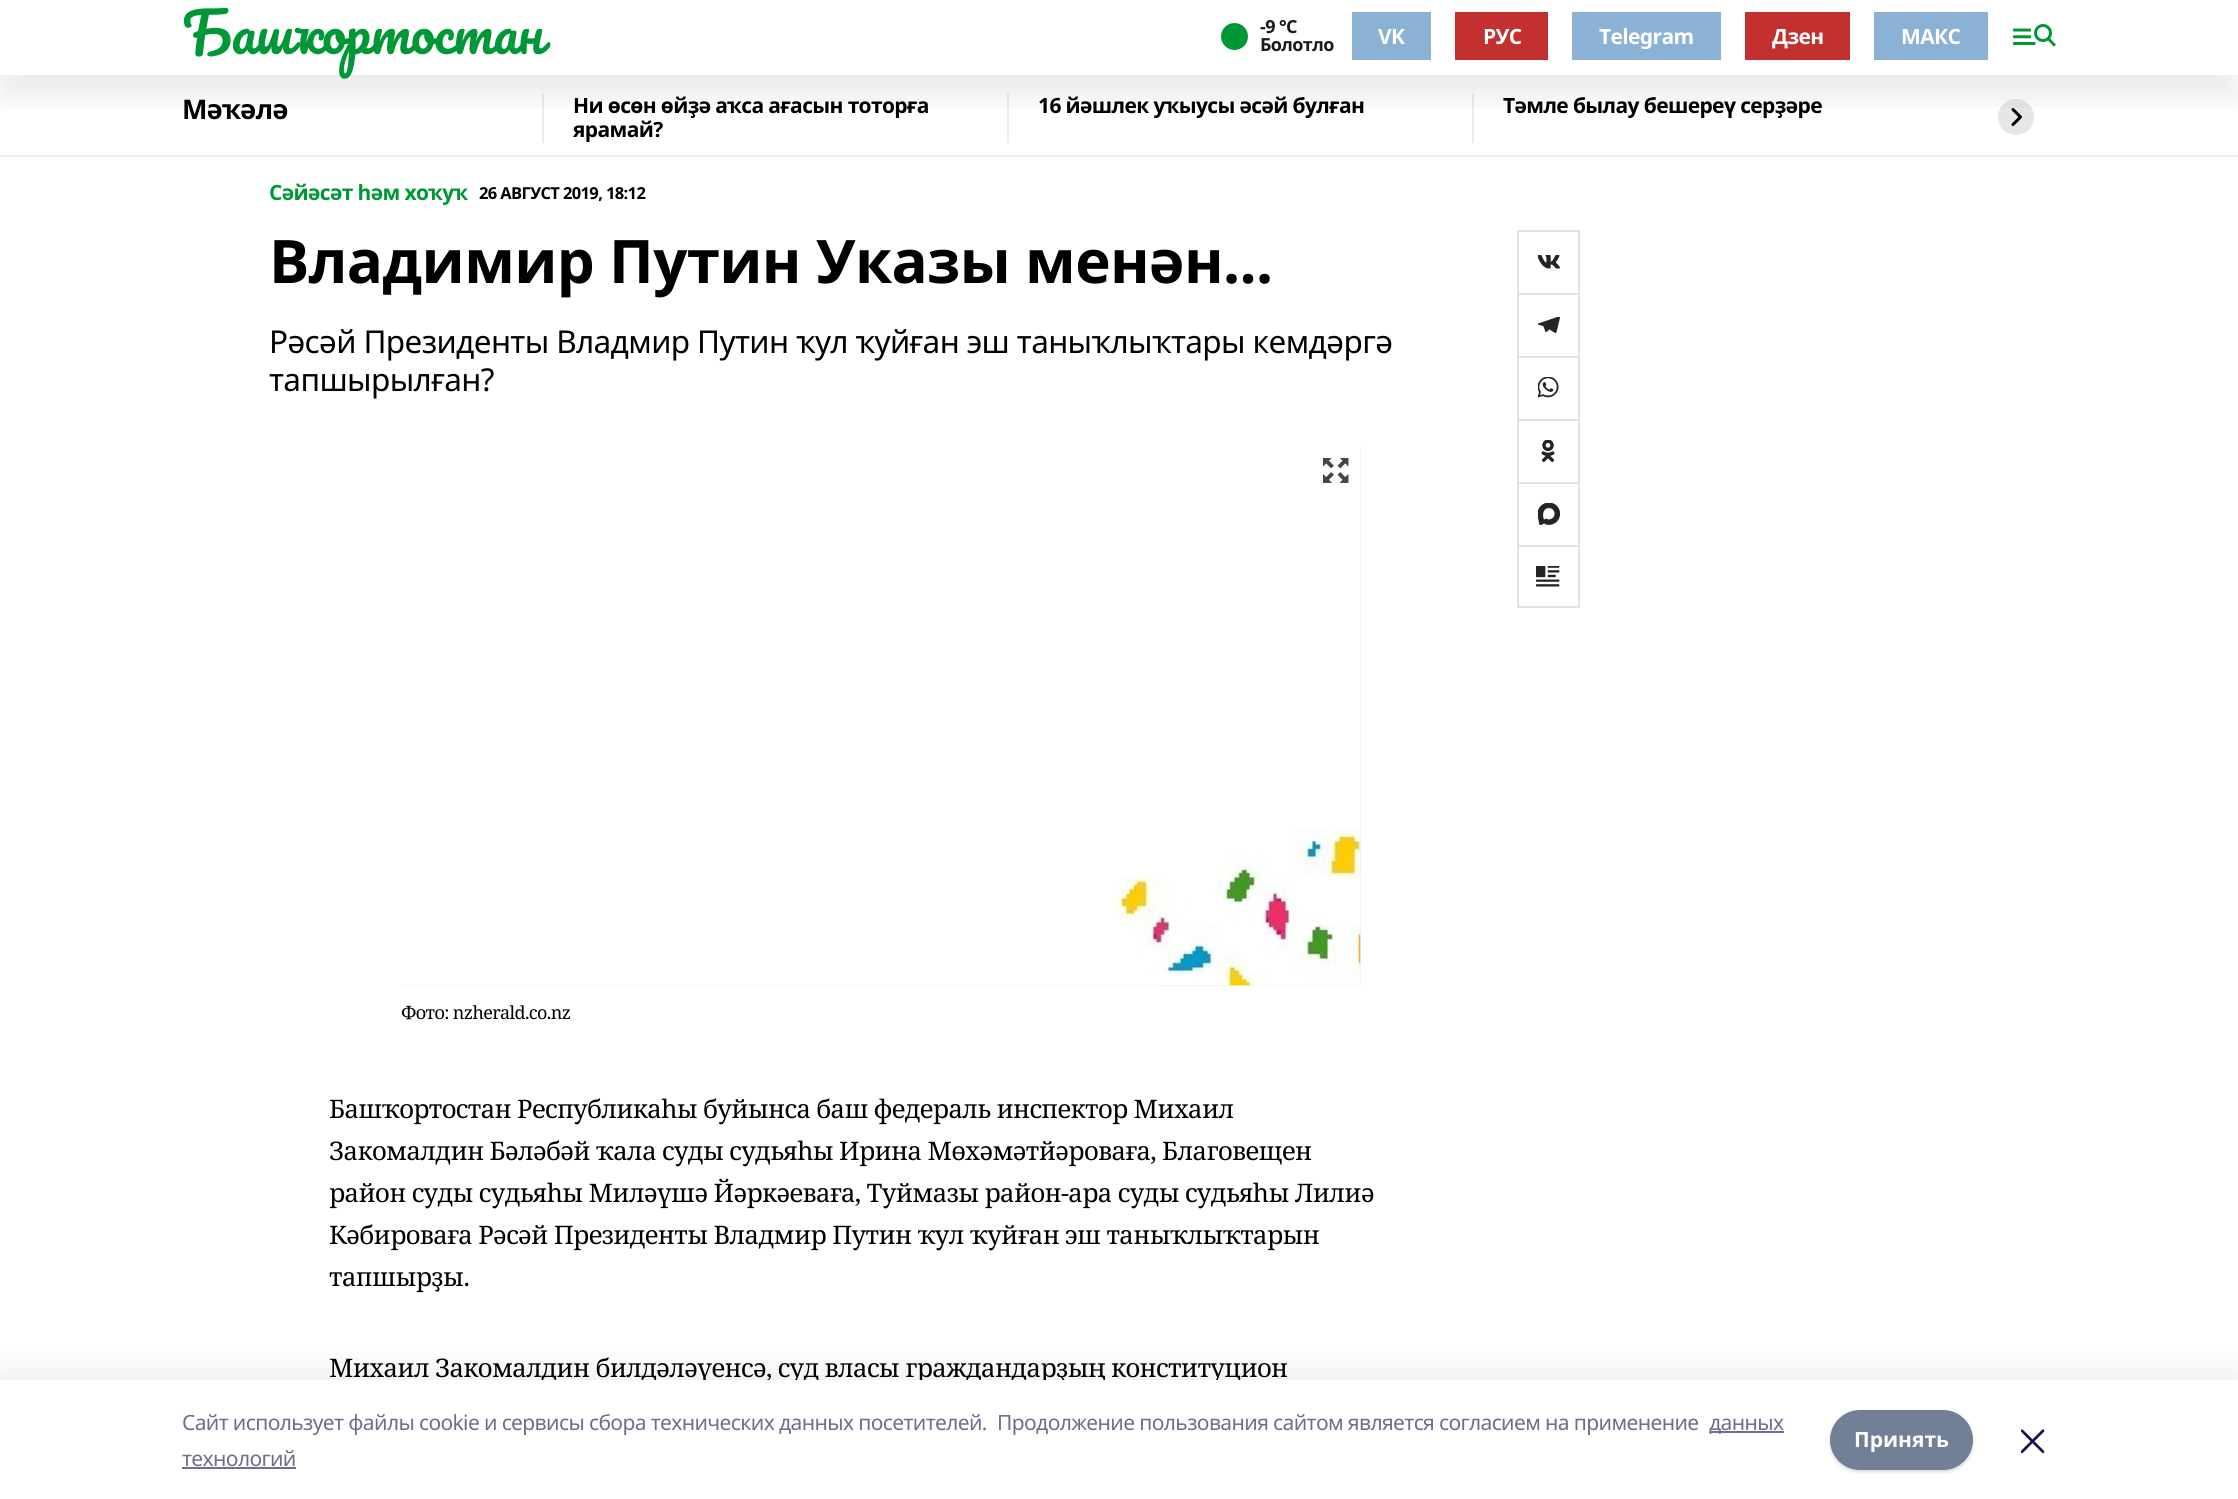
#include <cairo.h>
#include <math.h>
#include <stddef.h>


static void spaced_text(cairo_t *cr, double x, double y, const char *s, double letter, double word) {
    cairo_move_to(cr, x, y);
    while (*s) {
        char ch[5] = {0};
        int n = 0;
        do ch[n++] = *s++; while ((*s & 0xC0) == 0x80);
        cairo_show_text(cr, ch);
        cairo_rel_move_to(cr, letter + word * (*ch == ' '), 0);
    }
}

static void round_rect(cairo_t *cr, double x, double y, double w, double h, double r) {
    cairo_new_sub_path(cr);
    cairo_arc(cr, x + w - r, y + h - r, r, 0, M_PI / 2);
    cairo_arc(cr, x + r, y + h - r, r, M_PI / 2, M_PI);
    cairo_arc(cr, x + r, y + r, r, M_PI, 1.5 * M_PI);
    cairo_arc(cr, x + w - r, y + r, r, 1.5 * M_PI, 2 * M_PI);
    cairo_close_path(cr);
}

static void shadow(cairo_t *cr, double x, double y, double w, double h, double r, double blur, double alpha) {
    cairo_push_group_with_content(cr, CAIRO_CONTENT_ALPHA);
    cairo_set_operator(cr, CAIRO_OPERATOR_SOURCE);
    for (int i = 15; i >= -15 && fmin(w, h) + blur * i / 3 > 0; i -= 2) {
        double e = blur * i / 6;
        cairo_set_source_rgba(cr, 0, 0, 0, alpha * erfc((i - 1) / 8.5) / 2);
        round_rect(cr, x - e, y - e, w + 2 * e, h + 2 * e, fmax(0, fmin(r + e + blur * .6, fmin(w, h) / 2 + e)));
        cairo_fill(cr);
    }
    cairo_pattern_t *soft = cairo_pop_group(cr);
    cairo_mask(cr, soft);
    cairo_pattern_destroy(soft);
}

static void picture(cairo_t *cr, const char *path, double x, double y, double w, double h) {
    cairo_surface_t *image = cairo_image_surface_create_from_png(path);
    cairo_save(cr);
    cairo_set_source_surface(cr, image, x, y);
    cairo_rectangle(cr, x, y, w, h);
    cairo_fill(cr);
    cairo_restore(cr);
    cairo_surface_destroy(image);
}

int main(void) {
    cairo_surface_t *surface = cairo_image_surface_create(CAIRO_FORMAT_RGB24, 2238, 1499);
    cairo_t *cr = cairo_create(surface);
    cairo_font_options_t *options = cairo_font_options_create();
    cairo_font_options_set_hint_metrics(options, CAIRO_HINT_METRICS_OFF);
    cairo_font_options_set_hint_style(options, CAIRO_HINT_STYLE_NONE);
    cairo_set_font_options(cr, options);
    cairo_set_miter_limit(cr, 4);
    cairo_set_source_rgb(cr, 1, 1, 1);
    cairo_paint(cr);
    cairo_set_source_rgb(cr, 0.918, 0.918, 0.918);
    cairo_rectangle(cr, 542, 93, 2, 50);
    cairo_fill(cr);
    cairo_rectangle(cr, 1007, 93, 2, 50);
    cairo_fill(cr);
    cairo_rectangle(cr, 1472, 93, 2, 50);
    cairo_fill(cr);
    cairo_set_source_rgb(cr, 0.902, 0.902, 0.902);
    cairo_arc(cr, 2016, 117, 18, 0, 2 * M_PI);
    cairo_fill(cr);
    cairo_new_path(cr);
    cairo_move_to(cr, 2013, 109.5);
    cairo_line_to(cr, 2020.5, 117);
    cairo_line_to(cr, 2013, 124.5);
    cairo_set_source_rgb(cr, 0, 0, 0);
    cairo_set_line_width(cr, 3);
    cairo_set_line_cap(cr, CAIRO_LINE_CAP_ROUND);
    cairo_set_line_join(cr, CAIRO_LINE_JOIN_ROUND);
    cairo_stroke(cr);
    cairo_save(cr);
    cairo_rectangle(cr, 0, 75, 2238, 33);
    cairo_clip(cr);
    cairo_set_source_rgb(cr, 0, 0, 0);
    shadow(cr, 0, 23, 2238, 75, 0, 15, 0.08);
    cairo_restore(cr);
    cairo_select_font_face(cr, "Pacifico", CAIRO_FONT_SLANT_NORMAL, CAIRO_FONT_WEIGHT_NORMAL);
    cairo_set_font_size(cr, 54);
    cairo_set_source_rgb(cr, 0, 0.596, 0.212);
    spaced_text(cr, 182, 54, "Башҡортостан", -0.63, 0);
    cairo_new_path(cr);
    cairo_arc(cr, 1234.5, 36.5, 13.5, 0, 2 * M_PI);
    cairo_fill(cr);
    cairo_select_font_face(cr, "Noto Sans", CAIRO_FONT_SLANT_NORMAL, CAIRO_FONT_WEIGHT_BOLD);
    cairo_set_font_size(cr, 18);
    cairo_set_source_rgb(cr, 0.102, 0.102, 0.102);
    spaced_text(cr, 1260, 33, "-9 °С", -0.63, 0);
    spaced_text(cr, 1260, 51, "Болотло", -0.63, 0);
    cairo_set_source_rgb(cr, 0.545, 0.694, 0.831);
    cairo_rectangle(cr, 1352, 12, 79, 48);
    cairo_fill(cr);
    cairo_set_font_size(cr, 21);
    cairo_set_source_rgb(cr, 1, 1, 1);
    spaced_text(cr, 1378, 44, "VK", -0.63, 0);
    cairo_set_source_rgb(cr, 0.761, 0.188, 0.188);
    cairo_rectangle(cr, 1455, 12, 93, 48);
    cairo_fill(cr);
    cairo_set_source_rgb(cr, 1, 1, 1);
    spaced_text(cr, 1483, 44, "РУС", -0.63, 0);
    cairo_set_source_rgb(cr, 0.545, 0.694, 0.831);
    cairo_rectangle(cr, 1572, 12, 149, 48);
    cairo_fill(cr);
    cairo_set_source_rgb(cr, 1, 1, 1);
    spaced_text(cr, 1599, 44, "Telegram", -0.63, 0);
    cairo_set_source_rgb(cr, 0.761, 0.188, 0.188);
    cairo_rectangle(cr, 1745, 12, 105, 48);
    cairo_fill(cr);
    cairo_set_source_rgb(cr, 1, 1, 1);
    spaced_text(cr, 1772, 44, "Дзен", -0.63, 0);
    cairo_set_source_rgb(cr, 0.545, 0.694, 0.831);
    cairo_rectangle(cr, 1874, 12, 114, 48);
    cairo_fill(cr);
    cairo_set_source_rgb(cr, 1, 1, 1);
    spaced_text(cr, 1901, 44, "МАКС", -0.63, 0);
    picture(cr, "img1.png", 2013, 24, 43, 23);
    cairo_set_source_rgb(cr, 0.918, 0.918, 0.918);
    cairo_rectangle(cr, 0, 155, 2238, 2);
    cairo_fill(cr);
    cairo_set_font_size(cr, 27);
    cairo_set_source_rgb(cr, 0, 0, 0);
    spaced_text(cr, 182, 119, "Мәҡәлә", -0.63, 0);
    cairo_set_font_size(cr, 21);
    spaced_text(cr, 573, 113, "Ни өсөн өйҙә аҡса ағасын тоторға", -0.63, 0);
    spaced_text(cr, 573, 137, "ярамай?", -0.63, 0);
    spaced_text(cr, 1038, 113, "16 йәшлек уҡыусы әсәй булған", -0.63, 0);
    spaced_text(cr, 1503, 113, "Тәмле былау бешереү серҙәре", -0.63, 0);
    cairo_set_source_rgb(cr, 0, 0.596, 0.212);
    spaced_text(cr, 269, 200, "Сәйәсәт һәм хоҡуҡ", -0.63, 0);
    cairo_set_font_size(cr, 16.5);
    cairo_set_source_rgb(cr, 0, 0, 0);
    spaced_text(cr, 479, 199, "26 АВГУСТ 2019, 18:12", -0.63, 0);
    cairo_set_font_size(cr, 60);
    spaced_text(cr, 269, 283, "Владимир Путин Указы менән...", -0.63, 0);
    cairo_select_font_face(cr, "Noto Sans", CAIRO_FONT_SLANT_NORMAL, CAIRO_FONT_WEIGHT_NORMAL);
    cairo_set_font_size(cr, 31.5);
    spaced_text(cr, 269, 353, "Рәсәй Президенты Владмир Путин ҡул ҡуйған эш таныҡлыҡтары кемдәргә", -0.63, 0);
    spaced_text(cr, 269, 391, "тапшырылған?", -0.63, 0);
    cairo_set_source_rgb(cr, 0.929, 0.949, 0.969);
    cairo_rectangle(cr, 401, 446, 960, 540);
    cairo_fill(cr);
    picture(cr, "img2.png", 401, 446, 960, 540);
    picture(cr, "img3.png", 401, 446, 960, 540);
    picture(cr, "img4.png", 1323, 458, 26, 25);
    cairo_select_font_face(cr, "Noto Serif", CAIRO_FONT_SLANT_NORMAL, CAIRO_FONT_WEIGHT_NORMAL);
    cairo_set_font_size(cr, 18);
    cairo_set_source_rgb(cr, 0, 0, 0);
    spaced_text(cr, 401, 1019, "Фото: nzherald.co.nz", -0.63, 0);
    cairo_set_font_size(cr, 25.5);
    spaced_text(cr, 329, 1118, "Башҡортостан Республикаһы буйынса баш федераль инспектор Михаил", -0.63, 0);
    spaced_text(cr, 329, 1160, "Закомалдин Бәләбәй ҡала суды судьяһы Ирина Мөхәмәтйәроваға, Благовещен", -0.63, 0);
    spaced_text(cr, 329, 1202, "район суды судьяһы Миләүшә Йәркәеваға, Туймазы район-ара суды судьяһы Лилиә", -0.63, 0);
    spaced_text(cr, 329, 1244, "Кәбироваға Рәсәй Президенты Владмир Путин ҡул ҡуйған эш таныҡлыҡтарын", -0.63, 0);
    spaced_text(cr, 329, 1286, "тапшырҙы.", -0.63, 0);
    spaced_text(cr, 329, 1377, "Михаил Закомалдин билдәләүенсә, суд власы граждандарҙың конституцион", -0.63, 0);
    picture(cr, "img5.png", 1538, 255, 22, 14);
    cairo_set_source_rgb(cr, 0.886, 0.886, 0.886);
    cairo_rectangle(cr, 1517, 230, 63, 2);
    cairo_fill(cr);
    cairo_rectangle(cr, 1578, 230, 2, 63);
    cairo_fill(cr);
    cairo_rectangle(cr, 1517, 230, 2, 63);
    cairo_fill(cr);
    picture(cr, "img6.png", 1538, 317, 22, 16);
    cairo_rectangle(cr, 1517, 293, 63, 2);
    cairo_fill(cr);
    cairo_rectangle(cr, 1578, 293, 2, 63);
    cairo_fill(cr);
    cairo_rectangle(cr, 1517, 293, 2, 63);
    cairo_fill(cr);
    picture(cr, "img7.png", 1538, 377, 21, 21);
    cairo_rectangle(cr, 1517, 356, 63, 2);
    cairo_fill(cr);
    cairo_rectangle(cr, 1578, 356, 2, 63);
    cairo_fill(cr);
    cairo_rectangle(cr, 1517, 356, 2, 63);
    cairo_fill(cr);
    picture(cr, "img8.png", 1541, 440, 14, 22);
    cairo_rectangle(cr, 1517, 419, 63, 2);
    cairo_fill(cr);
    cairo_rectangle(cr, 1578, 419, 2, 63);
    cairo_fill(cr);
    cairo_rectangle(cr, 1517, 419, 2, 63);
    cairo_fill(cr);
    picture(cr, "img9.png", 1538, 503, 22, 22);
    cairo_rectangle(cr, 1517, 482, 63, 2);
    cairo_fill(cr);
    cairo_rectangle(cr, 1578, 482, 2, 63);
    cairo_fill(cr);
    cairo_rectangle(cr, 1517, 482, 2, 63);
    cairo_fill(cr);
    picture(cr, "img10.png", 1536, 566, 24, 21);
    cairo_rectangle(cr, 1518, 546, 61, 61);
    cairo_set_line_width(cr, 2);
    cairo_set_line_cap(cr, CAIRO_LINE_CAP_BUTT);
    cairo_set_line_join(cr, CAIRO_LINE_JOIN_MITER);
    cairo_stroke(cr);
    cairo_set_source_rgb(cr, 0.078, 0.078, 0.169);
    shadow(cr, 0, 1371, 2238, 120, 0, 17, 0.08);
    cairo_set_source_rgb(cr, 1, 1, 1);
    cairo_rectangle(cr, 0, 1380, 2238, 119);
    cairo_fill(cr);
    cairo_select_font_face(cr, "Noto Sans", CAIRO_FONT_SLANT_NORMAL, CAIRO_FONT_WEIGHT_NORMAL);
    cairo_set_font_size(cr, 21);
    cairo_set_source_rgb(cr, 0.435, 0.424, 0.565);
    spaced_text(cr, 182, 1430, "Cайт использует файлы cookie и сервисы сбора технических данных посетителей.", -0.63, 0);
    spaced_text(cr, 997, 1430, "Продолжение пользования сайтом является согласием на применение", -0.63, 0);
    cairo_rectangle(cr, 1710, 1431, 74, 2);
    cairo_fill(cr);
    spaced_text(cr, 1709, 1430, "данных", -0.63, 0);
    spaced_text(cr, 182, 1466, "технологий", -0.63, 0);
    cairo_rectangle(cr, 182, 1467, 114, 2);
    cairo_fill(cr);
    cairo_set_source_rgb(cr, 0, 0, 0);
    shadow(cr, 1830, 1412, 143, 60, 30, 1.5, 0.06);
    shadow(cr, 1830, 1412, 143, 60, 30, 2, 0.1);
    cairo_set_source_rgb(cr, 0.443, 0.502, 0.588);
    round_rect(cr, 1830, 1410, 143, 60, 30);
    cairo_fill(cr);
    cairo_select_font_face(cr, "Noto Sans", CAIRO_FONT_SLANT_NORMAL, CAIRO_FONT_WEIGHT_BOLD);
    cairo_set_source_rgb(cr, 1, 1, 1);
    cairo_move_to(cr, 1854, 1447);
    cairo_show_text(cr, "Принять");
    picture(cr, "img11.png", 2021, 1429, 24, 25);
    cairo_surface_write_to_png(surface, "page.png");
    cairo_font_options_destroy(options);
    cairo_destroy(cr);
    cairo_surface_destroy(surface);
    return 0;
}
